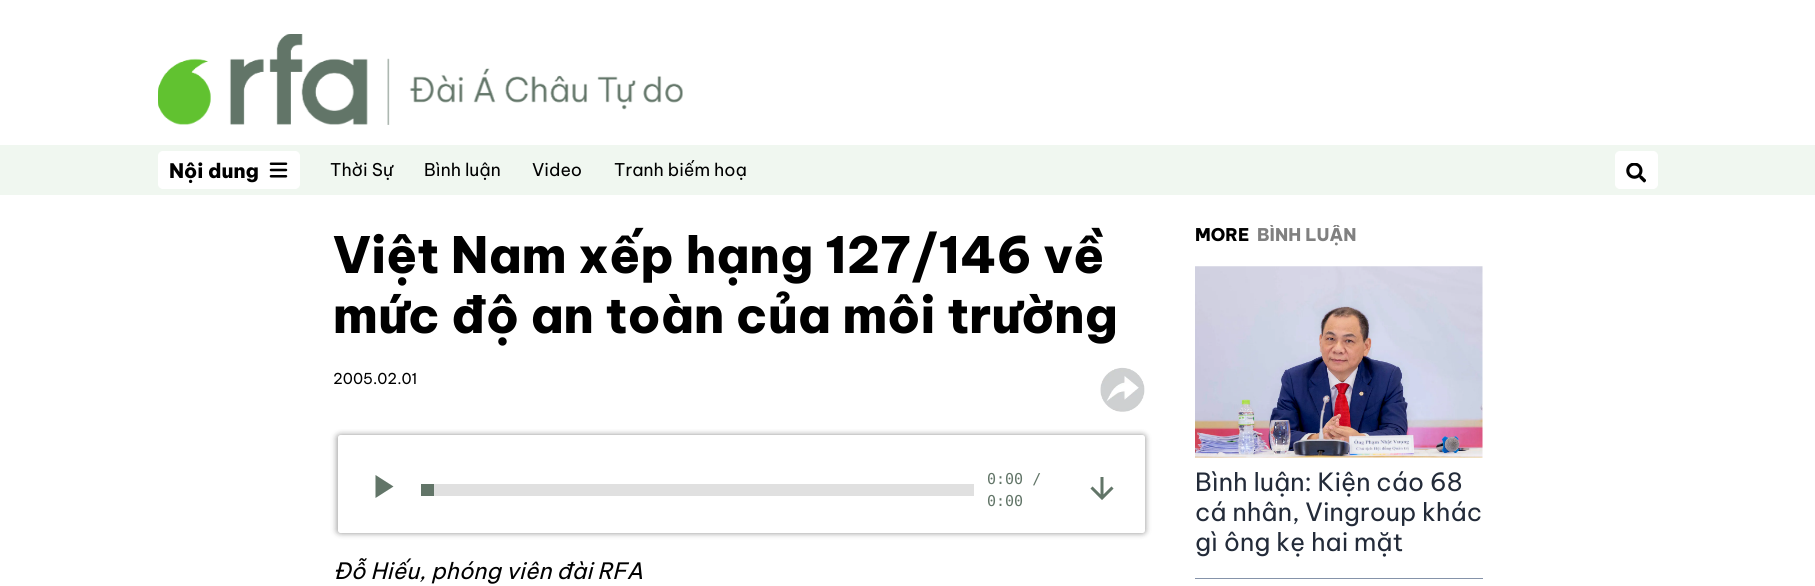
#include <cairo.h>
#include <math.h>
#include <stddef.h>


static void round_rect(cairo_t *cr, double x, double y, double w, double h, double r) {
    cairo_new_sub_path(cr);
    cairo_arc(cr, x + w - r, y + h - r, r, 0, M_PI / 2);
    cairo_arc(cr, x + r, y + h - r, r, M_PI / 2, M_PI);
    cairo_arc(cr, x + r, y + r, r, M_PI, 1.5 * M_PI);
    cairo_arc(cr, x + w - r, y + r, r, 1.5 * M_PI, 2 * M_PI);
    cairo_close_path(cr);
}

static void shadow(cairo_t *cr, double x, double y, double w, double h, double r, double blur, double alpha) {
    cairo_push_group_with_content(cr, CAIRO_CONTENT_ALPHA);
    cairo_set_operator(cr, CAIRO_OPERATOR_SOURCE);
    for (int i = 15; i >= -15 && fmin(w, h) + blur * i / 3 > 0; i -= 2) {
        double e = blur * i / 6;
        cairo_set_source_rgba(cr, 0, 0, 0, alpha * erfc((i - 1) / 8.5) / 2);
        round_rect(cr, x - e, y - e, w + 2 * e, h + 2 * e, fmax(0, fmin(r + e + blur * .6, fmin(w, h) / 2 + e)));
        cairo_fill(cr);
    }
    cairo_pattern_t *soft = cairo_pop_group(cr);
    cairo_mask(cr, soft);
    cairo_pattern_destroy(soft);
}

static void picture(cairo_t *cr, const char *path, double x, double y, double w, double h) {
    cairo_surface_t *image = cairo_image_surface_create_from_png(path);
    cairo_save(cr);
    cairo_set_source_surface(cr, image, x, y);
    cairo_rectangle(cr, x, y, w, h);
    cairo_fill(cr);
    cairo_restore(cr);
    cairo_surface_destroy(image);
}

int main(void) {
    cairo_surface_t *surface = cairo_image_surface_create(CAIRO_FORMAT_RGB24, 1815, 586);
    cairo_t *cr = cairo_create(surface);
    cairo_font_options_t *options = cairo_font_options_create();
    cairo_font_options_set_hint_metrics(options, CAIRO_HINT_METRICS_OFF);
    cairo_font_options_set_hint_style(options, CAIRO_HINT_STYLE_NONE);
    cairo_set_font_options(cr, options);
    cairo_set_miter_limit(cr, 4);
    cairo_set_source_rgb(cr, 1, 1, 1);
    cairo_paint(cr);
    picture(cr, "img1.png", 158, 34, 525, 91);
    cairo_set_source_rgb(cr, 0.941, 0.965, 0.941);
    cairo_rectangle(cr, 0, 145, 1815, 50);
    cairo_fill(cr);
    cairo_set_source_rgb(cr, 1, 1, 1);
    round_rect(cr, 158.5, 151.5, 141, 37, 4.5);
    cairo_fill_preserve(cr);
    cairo_set_line_width(cr, 1);
    cairo_stroke(cr);
    cairo_select_font_face(cr, "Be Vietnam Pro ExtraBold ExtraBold", CAIRO_FONT_SLANT_NORMAL, CAIRO_FONT_WEIGHT_NORMAL);
    cairo_set_font_size(cr, 20);
    cairo_set_source_rgb(cr, 0, 0, 0);
    cairo_move_to(cr, 169, 178);
    cairo_show_text(cr, "Nội dung");
    picture(cr, "img2.png", 269, 162, 19, 16);
    cairo_select_font_face(cr, "Be Vietnam Pro", CAIRO_FONT_SLANT_NORMAL, CAIRO_FONT_WEIGHT_NORMAL);
    cairo_set_font_size(cr, 17.5);
    cairo_move_to(cr, 330, 176);
    cairo_show_text(cr, "Thời Sự");
    cairo_move_to(cr, 424, 176);
    cairo_show_text(cr, "Bình luận");
    cairo_move_to(cr, 532, 176);
    cairo_show_text(cr, "Video");
    cairo_move_to(cr, 614, 176);
    cairo_show_text(cr, "Tranh biếm hoạ");
    cairo_set_source_rgb(cr, 1, 1, 1);
    round_rect(cr, 1615.5, 151.5, 42, 37, 4.5);
    cairo_fill_preserve(cr);
    cairo_stroke(cr);
    picture(cr, "img3.png", 1626, 163, 20, 20);
    cairo_select_font_face(cr, "Be Vietnam Pro ExtraBold ExtraBold", CAIRO_FONT_SLANT_NORMAL, CAIRO_FONT_WEIGHT_NORMAL);
    cairo_set_font_size(cr, 50);
    cairo_set_source_rgb(cr, 0, 0, 0);
    cairo_move_to(cr, 333, 273);
    cairo_show_text(cr, "Việt Nam xếp hạng 127/146 về");
    cairo_move_to(cr, 333, 333);
    cairo_show_text(cr, "mức độ an toàn của môi trường");
    cairo_select_font_face(cr, "Be Vietnam Pro", CAIRO_FONT_SLANT_NORMAL, CAIRO_FONT_WEIGHT_NORMAL);
    cairo_set_font_size(cr, 15);
    cairo_move_to(cr, 333, 384);
    cairo_show_text(cr, "2005.02.01");
    picture(cr, "img4.png", 1100, 367, 45, 45);
    cairo_set_source_rgb(cr, 0.196, 0.196, 0.196);
    shadow(cr, 339, 435, 807, 98, 2.5, 3, 0.3);
    shadow(cr, 336, 435, 808, 98, 2.5, 3, 0.3);
    cairo_set_source_rgb(cr, 1, 1, 1);
    round_rect(cr, 338, 435, 807, 98, 2.5);
    cairo_fill(cr);
    cairo_set_source_rgb(cr, 0.384, 0.459, 0.408);
    cairo_new_path(cr);
    cairo_move_to(cr, 375.5, 475);
    cairo_line_to(cr, 375.5, 498);
    cairo_line_to(cr, 393.5, 486.5);
    cairo_close_path(cr);
    cairo_fill(cr);
    cairo_set_source_rgb(cr, 0.878, 0.878, 0.878);
    cairo_rectangle(cr, 434, 484, 540, 12);
    cairo_fill(cr);
    cairo_set_source_rgb(cr, 0.384, 0.459, 0.408);
    cairo_rectangle(cr, 421, 484, 13, 12);
    cairo_fill(cr);
    cairo_select_font_face(cr, "DejaVu Sans Mono", CAIRO_FONT_SLANT_NORMAL, CAIRO_FONT_WEIGHT_NORMAL);
    cairo_move_to(cr, 987, 484);
    cairo_show_text(cr, "0:00 /");
    cairo_move_to(cr, 987, 506);
    cairo_show_text(cr, "0:00");
    cairo_new_path(cr);
    cairo_move_to(cr, 1102, 477);
    cairo_line_to(cr, 1102, 498);
    cairo_move_to(cr, 1112.5, 487.5);
    cairo_line_to(cr, 1102, 498);
    cairo_line_to(cr, 1091.5, 487.5);
    cairo_set_line_width(cr, 3);
    cairo_stroke(cr);
    cairo_select_font_face(cr, "Be Vietnam Pro", CAIRO_FONT_SLANT_ITALIC, CAIRO_FONT_WEIGHT_NORMAL);
    cairo_set_font_size(cr, 22.5);
    cairo_set_source_rgb(cr, 0, 0, 0);
    cairo_move_to(cr, 333, 579);
    cairo_show_text(cr, "Đỗ Hiếu, phóng viên đài RFA");
    cairo_select_font_face(cr, "Be Vietnam Pro ExtraBold ExtraBold", CAIRO_FONT_SLANT_NORMAL, CAIRO_FONT_WEIGHT_NORMAL);
    cairo_set_font_size(cr, 17.5);
    cairo_move_to(cr, 1195, 241);
    cairo_show_text(cr, "MORE");
    cairo_save(cr);
    cairo_rectangle(cr, 1195, 225, 288, 21);
    cairo_clip(cr);
    cairo_set_source_rgb(cr, 0.502, 0.502, 0.502);
    cairo_move_to(cr, 1257, 241);
    cairo_show_text(cr, "BÌNH LUẬN");
    cairo_restore(cr);
    picture(cr, "img5.png", 1195, 266, 288, 192);
    cairo_select_font_face(cr, "Be Vietnam Pro", CAIRO_FONT_SLANT_NORMAL, CAIRO_FONT_WEIGHT_NORMAL);
    cairo_set_font_size(cr, 25);
    cairo_set_source_rgb(cr, 0.137, 0.169, 0.224);
    cairo_move_to(cr, 1195, 491);
    cairo_show_text(cr, "Bình luận: Kiện cáo 68");
    cairo_move_to(cr, 1195, 521);
    cairo_show_text(cr, "cá nhân, Vingroup khác");
    cairo_move_to(cr, 1195, 551);
    cairo_show_text(cr, "gì ông kẹ hai mặt");
    cairo_set_source_rgb(cr, 0.522, 0.576, 0.667);
    cairo_rectangle(cr, 1195, 578, 288, 1);
    cairo_fill(cr);
    cairo_surface_write_to_png(surface, "page.png");
    cairo_font_options_destroy(options);
    cairo_destroy(cr);
    cairo_surface_destroy(surface);
    return 0;
}
